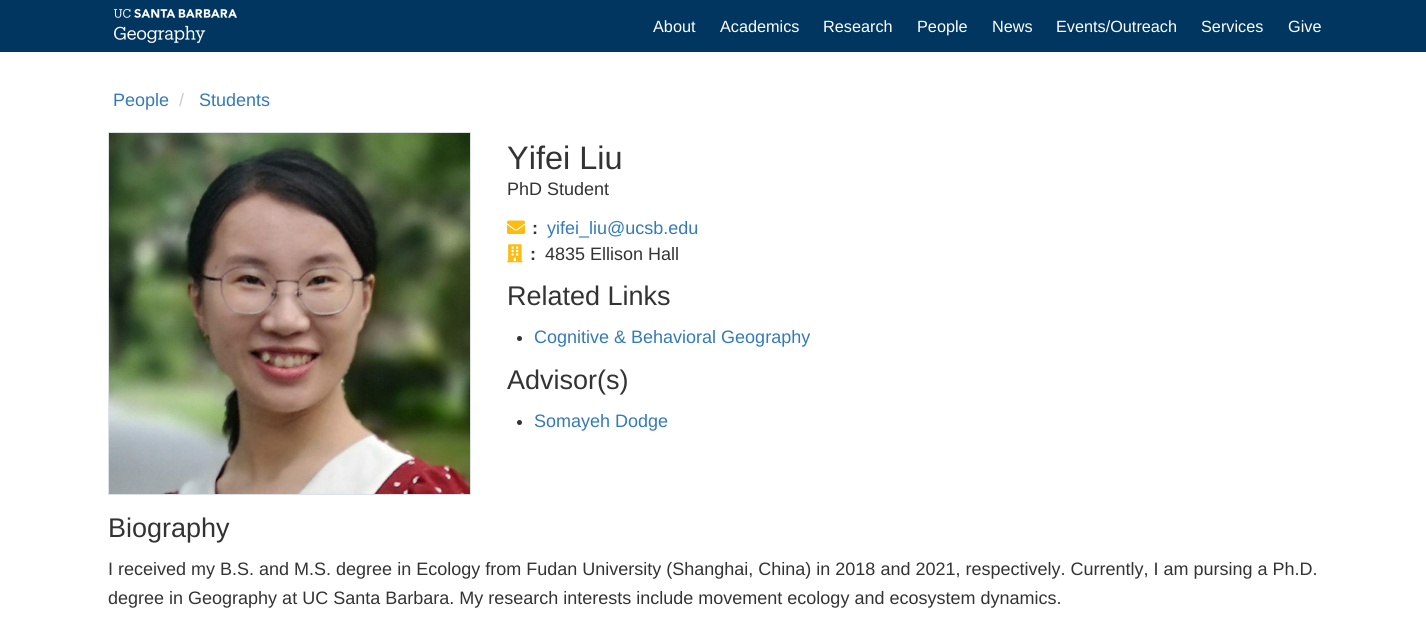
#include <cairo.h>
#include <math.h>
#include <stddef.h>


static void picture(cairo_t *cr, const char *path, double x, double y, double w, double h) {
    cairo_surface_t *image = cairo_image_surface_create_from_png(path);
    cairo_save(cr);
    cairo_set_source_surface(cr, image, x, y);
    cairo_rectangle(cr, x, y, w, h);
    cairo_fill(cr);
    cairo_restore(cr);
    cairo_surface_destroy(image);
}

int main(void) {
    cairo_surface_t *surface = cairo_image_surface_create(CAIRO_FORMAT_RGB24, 1426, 634);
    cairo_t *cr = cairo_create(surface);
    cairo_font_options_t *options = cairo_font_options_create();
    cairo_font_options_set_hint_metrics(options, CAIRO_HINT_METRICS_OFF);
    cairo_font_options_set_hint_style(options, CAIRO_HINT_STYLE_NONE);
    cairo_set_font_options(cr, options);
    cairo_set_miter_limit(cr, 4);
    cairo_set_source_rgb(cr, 1, 1, 1);
    cairo_paint(cr);
    cairo_set_source_rgb(cr, 0, 0.212, 0.376);
    cairo_rectangle(cr, 0, 0, 1426, 52);
    cairo_fill(cr);
    picture(cr, "img1.png", 114, 9, 123, 34);
    cairo_select_font_face(cr, "Liberation Sans", CAIRO_FONT_SLANT_NORMAL, CAIRO_FONT_WEIGHT_NORMAL);
    cairo_set_font_size(cr, 16.25);
    cairo_set_source_rgb(cr, 1, 1, 1);
    cairo_move_to(cr, 653, 32);
    cairo_show_text(cr, "About");
    cairo_move_to(cr, 720, 32);
    cairo_show_text(cr, "Academics");
    cairo_move_to(cr, 823, 32);
    cairo_show_text(cr, "Research");
    cairo_move_to(cr, 917, 32);
    cairo_show_text(cr, "People");
    cairo_move_to(cr, 992, 32);
    cairo_show_text(cr, "News");
    cairo_move_to(cr, 1056, 32);
    cairo_show_text(cr, "Events/Outreach");
    cairo_move_to(cr, 1201, 32);
    cairo_show_text(cr, "Services");
    cairo_move_to(cr, 1288, 32);
    cairo_show_text(cr, "Give");
    cairo_set_font_size(cr, 18);
    cairo_set_source_rgb(cr, 0.2, 0.478, 0.718);
    cairo_move_to(cr, 113, 106);
    cairo_show_text(cr, "People");
    cairo_set_source_rgb(cr, 0.8, 0.8, 0.8);
    cairo_move_to(cr, 179, 106);
    cairo_show_text(cr, "/");
    cairo_set_source_rgb(cr, 0.2, 0.478, 0.718);
    cairo_move_to(cr, 199, 106);
    cairo_show_text(cr, "Students");
    cairo_rectangle(cr, 108.5, 132.5, 362, 362);
    cairo_set_source_rgb(cr, 0.863, 0.882, 0.898);
    cairo_set_line_width(cr, 1);
    cairo_stroke(cr);
    picture(cr, "img2.png", 109, 133, 361, 361);
    cairo_set_font_size(cr, 32.5);
    cairo_set_source_rgb(cr, 0.2, 0.2, 0.2);
    cairo_move_to(cr, 507, 169);
    cairo_show_text(cr, "Yifei Liu");
    cairo_set_font_size(cr, 18);
    cairo_move_to(cr, 507, 195);
    cairo_show_text(cr, "PhD Student");
    picture(cr, "img3.png", 507, 220, 18, 14);
    cairo_select_font_face(cr, "Liberation Sans", CAIRO_FONT_SLANT_NORMAL, CAIRO_FONT_WEIGHT_BOLD);
    cairo_move_to(cr, 532, 234);
    cairo_show_text(cr, ":");
    cairo_select_font_face(cr, "Liberation Sans", CAIRO_FONT_SLANT_NORMAL, CAIRO_FONT_WEIGHT_NORMAL);
    cairo_set_source_rgb(cr, 0.2, 0.478, 0.718);
    cairo_move_to(cr, 547, 234);
    cairo_show_text(cr, "yifei_liu@ucsb.edu");
    picture(cr, "img4.png", 507, 244, 16, 19);
    cairo_select_font_face(cr, "Liberation Sans", CAIRO_FONT_SLANT_NORMAL, CAIRO_FONT_WEIGHT_BOLD);
    cairo_set_source_rgb(cr, 0.2, 0.2, 0.2);
    cairo_move_to(cr, 530, 260);
    cairo_show_text(cr, ":");
    cairo_select_font_face(cr, "Liberation Sans", CAIRO_FONT_SLANT_NORMAL, CAIRO_FONT_WEIGHT_NORMAL);
    cairo_move_to(cr, 545, 260);
    cairo_show_text(cr, "4835 Ellison Hall");
    cairo_set_font_size(cr, 27);
    cairo_move_to(cr, 507, 305);
    cairo_show_text(cr, "Related Links");
    cairo_new_path(cr);
    cairo_arc(cr, 519.5, 338.5, 2.5, 0, 2 * M_PI);
    cairo_fill(cr);
    cairo_set_font_size(cr, 18);
    cairo_set_source_rgb(cr, 0.2, 0.478, 0.718);
    cairo_move_to(cr, 534, 343);
    cairo_show_text(cr, "Cognitive & Behavioral Geography");
    cairo_set_font_size(cr, 27);
    cairo_set_source_rgb(cr, 0.2, 0.2, 0.2);
    cairo_move_to(cr, 507, 389);
    cairo_show_text(cr, "Advisor(s)");
    cairo_new_path(cr);
    cairo_arc(cr, 519.5, 422.5, 2.5, 0, 2 * M_PI);
    cairo_fill(cr);
    cairo_set_font_size(cr, 18);
    cairo_set_source_rgb(cr, 0.2, 0.478, 0.718);
    cairo_move_to(cr, 534, 427);
    cairo_show_text(cr, "Somayeh Dodge");
    cairo_set_font_size(cr, 27);
    cairo_set_source_rgb(cr, 0.2, 0.2, 0.2);
    cairo_move_to(cr, 108, 537);
    cairo_show_text(cr, "Biography");
    cairo_set_font_size(cr, 18);
    cairo_move_to(cr, 108, 575);
    cairo_show_text(cr, "I received my B.S. and M.S. degree in Ecology from Fudan University (Shanghai, China) in 2018 and 2021, respectively. Currently, I am pursing a Ph.D.");
    cairo_move_to(cr, 108, 604);
    cairo_show_text(cr, "degree in Geography at UC Santa Barbara. My research interests include movement ecology and ecosystem dynamics.");
    cairo_surface_write_to_png(surface, "page.png");
    cairo_font_options_destroy(options);
    cairo_destroy(cr);
    cairo_surface_destroy(surface);
    return 0;
}
